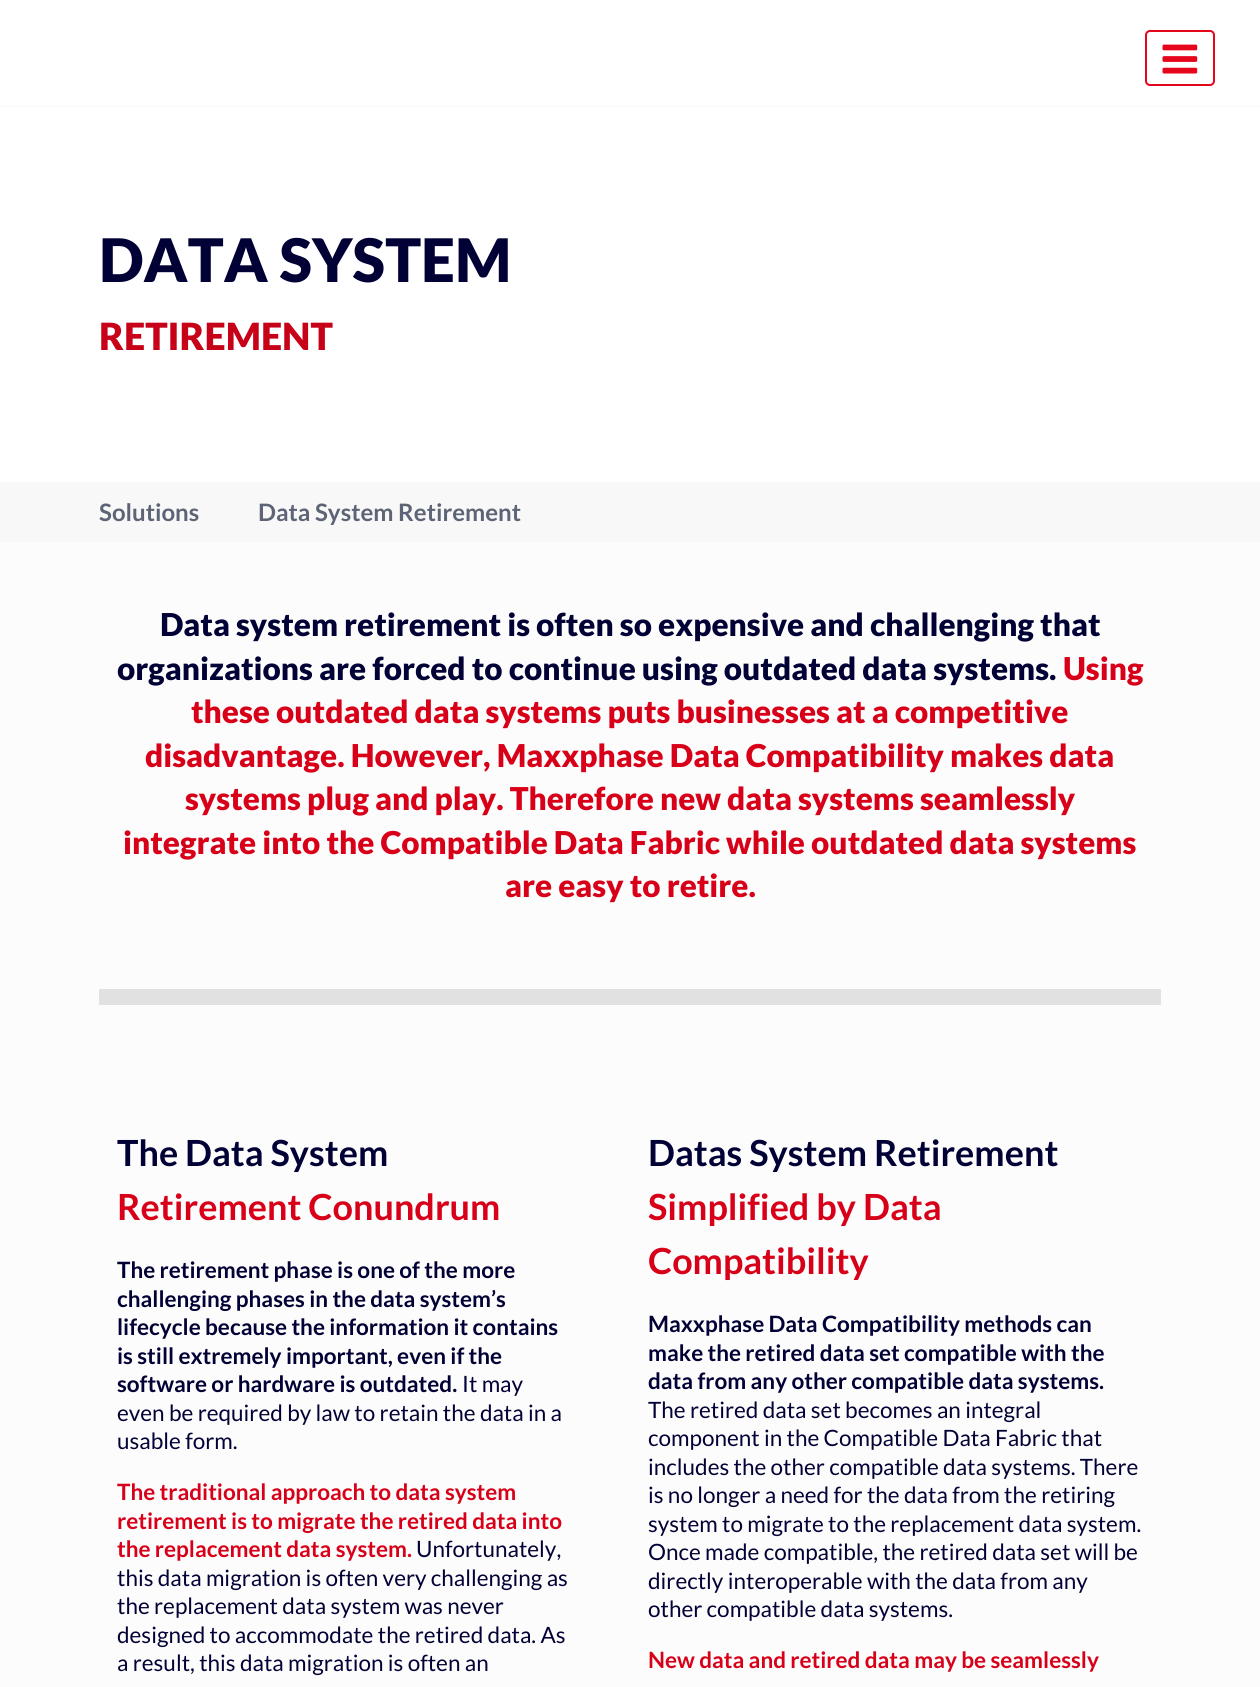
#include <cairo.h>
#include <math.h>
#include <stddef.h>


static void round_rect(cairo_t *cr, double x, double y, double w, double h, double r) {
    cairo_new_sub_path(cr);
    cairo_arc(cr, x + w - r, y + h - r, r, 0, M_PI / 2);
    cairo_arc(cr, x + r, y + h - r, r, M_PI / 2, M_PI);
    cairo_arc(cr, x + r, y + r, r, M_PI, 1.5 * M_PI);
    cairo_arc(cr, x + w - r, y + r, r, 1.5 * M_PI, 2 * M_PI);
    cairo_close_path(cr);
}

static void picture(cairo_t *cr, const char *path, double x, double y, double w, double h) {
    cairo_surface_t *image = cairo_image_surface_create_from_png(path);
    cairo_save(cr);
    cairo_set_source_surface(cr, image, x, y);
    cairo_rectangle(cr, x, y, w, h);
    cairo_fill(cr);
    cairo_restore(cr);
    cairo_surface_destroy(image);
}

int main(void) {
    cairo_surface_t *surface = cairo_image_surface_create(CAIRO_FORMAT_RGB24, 1260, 1687);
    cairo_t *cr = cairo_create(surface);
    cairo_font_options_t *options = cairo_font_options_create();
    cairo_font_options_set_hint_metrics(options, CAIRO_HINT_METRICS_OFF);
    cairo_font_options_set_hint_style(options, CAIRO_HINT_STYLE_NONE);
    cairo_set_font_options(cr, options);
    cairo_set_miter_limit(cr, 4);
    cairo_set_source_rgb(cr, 0.988, 0.988, 0.988);
    cairo_paint(cr);
    cairo_set_source_rgb(cr, 1, 1, 1);
    cairo_rectangle(cr, 0, 0, 1260, 105);
    cairo_fill(cr);
    round_rect(cr, 1146, 31, 68, 54, 4);
    cairo_set_source_rgb(cr, 0.902, 0.024, 0.11);
    cairo_stroke(cr);
    picture(cr, "img1.png", 1162, 44, 36, 30);
    cairo_set_source_rgb(cr, 1, 1, 1);
    cairo_rectangle(cr, 0, 107, 1260, 375);
    cairo_fill(cr);
    cairo_select_font_face(cr, "Lato Black", CAIRO_FONT_SLANT_NORMAL, CAIRO_FONT_WEIGHT_NORMAL);
    cairo_set_font_size(cr, 60);
    cairo_set_source_rgb(cr, 0.008, 0.004, 0.212);
    cairo_move_to(cr, 99, 282);
    cairo_show_text(cr, "DATA SYSTEM");
    cairo_set_font_size(cr, 37.5);
    cairo_set_source_rgb(cr, 0.78, 0.008, 0.094);
    cairo_move_to(cr, 99, 350);
    cairo_show_text(cr, "RETIREMENT");
    cairo_set_source_rgb(cr, 0.969, 0.969, 0.969);
    cairo_rectangle(cr, 0, 482, 1260, 60);
    cairo_fill(cr);
    cairo_select_font_face(cr, "Lato", CAIRO_FONT_SLANT_NORMAL, CAIRO_FONT_WEIGHT_BOLD);
    cairo_set_font_size(cr, 24);
    cairo_set_source_rgb(cr, 0.365, 0.392, 0.463);
    cairo_move_to(cr, 99, 521);
    cairo_show_text(cr, "Solutions");
    cairo_move_to(cr, 258, 521);
    cairo_show_text(cr, "Data System Retirement");
    cairo_select_font_face(cr, "Lato Black", CAIRO_FONT_SLANT_NORMAL, CAIRO_FONT_WEIGHT_NORMAL);
    cairo_set_font_size(cr, 31.5);
    cairo_set_source_rgb(cr, 0.008, 0.004, 0.212);
    cairo_move_to(cr, 160, 636);
    cairo_show_text(cr, "Data system retirement is often so expensive and challenging that");
    cairo_move_to(cr, 117, 680);
    cairo_show_text(cr, "organizations are forced to continue using outdated data systems.");
    cairo_set_source_rgb(cr, 0.847, 0, 0.094);
    cairo_move_to(cr, 1063, 680);
    cairo_show_text(cr, "Using");
    cairo_move_to(cr, 191, 723);
    cairo_show_text(cr, "these outdated data systems puts businesses at a competitive");
    cairo_move_to(cr, 145, 767);
    cairo_show_text(cr, "disadvantage. However, Maxxphase Data Compatibility makes data");
    cairo_move_to(cr, 185, 810);
    cairo_show_text(cr, "systems plug and play. Therefore new data systems seamlessly");
    cairo_move_to(cr, 123, 854);
    cairo_show_text(cr, "integrate into the Compatible Data Fabric while outdated data systems");
    cairo_move_to(cr, 505, 897);
    cairo_show_text(cr, "are easy to retire.");
    cairo_set_source_rgb(cr, 0.882, 0.882, 0.882);
    cairo_rectangle(cr, 99, 989, 1062, 16);
    cairo_fill(cr);
    cairo_select_font_face(cr, "Lato", CAIRO_FONT_SLANT_NORMAL, CAIRO_FONT_WEIGHT_BOLD);
    cairo_set_font_size(cr, 36);
    cairo_set_source_rgb(cr, 0.008, 0.004, 0.212);
    cairo_move_to(cr, 117, 1166);
    cairo_show_text(cr, "The Data System");
    cairo_set_source_rgb(cr, 0.847, 0, 0.094);
    cairo_move_to(cr, 117, 1220);
    cairo_show_text(cr, "Retirement Conundrum");
    cairo_set_font_size(cr, 22.5);
    cairo_set_source_rgb(cr, 0.008, 0.004, 0.212);
    cairo_move_to(cr, 117, 1278);
    cairo_show_text(cr, "The retirement phase is one of the more");
    cairo_move_to(cr, 117, 1307);
    cairo_show_text(cr, "challenging phases in the data system’s");
    cairo_move_to(cr, 117, 1335);
    cairo_show_text(cr, "lifecycle because the information it contains");
    cairo_move_to(cr, 117, 1364);
    cairo_show_text(cr, "is still extremely important, even if the");
    cairo_move_to(cr, 117, 1392);
    cairo_show_text(cr, "software or hardware is outdated.");
    cairo_select_font_face(cr, "Lato", CAIRO_FONT_SLANT_NORMAL, CAIRO_FONT_WEIGHT_NORMAL);
    cairo_move_to(cr, 462, 1392);
    cairo_show_text(cr, "It may");
    cairo_move_to(cr, 117, 1421);
    cairo_show_text(cr, "even be required by law to retain the data in a");
    cairo_move_to(cr, 117, 1449);
    cairo_show_text(cr, "usable form.");
    cairo_select_font_face(cr, "Lato", CAIRO_FONT_SLANT_NORMAL, CAIRO_FONT_WEIGHT_BOLD);
    cairo_set_source_rgb(cr, 0.847, 0, 0.094);
    cairo_move_to(cr, 117, 1500);
    cairo_show_text(cr, "The traditional approach to data system");
    cairo_move_to(cr, 117, 1529);
    cairo_show_text(cr, "retirement is to migrate the retired data into");
    cairo_move_to(cr, 117, 1557);
    cairo_show_text(cr, "the replacement data system.");
    cairo_select_font_face(cr, "Lato", CAIRO_FONT_SLANT_NORMAL, CAIRO_FONT_WEIGHT_NORMAL);
    cairo_set_source_rgb(cr, 0.008, 0.004, 0.212);
    cairo_move_to(cr, 416, 1557);
    cairo_show_text(cr, "Unfortunately,");
    cairo_move_to(cr, 117, 1586);
    cairo_show_text(cr, "this data migration is often very challenging as");
    cairo_move_to(cr, 117, 1614);
    cairo_show_text(cr, "the replacement data system was never");
    cairo_move_to(cr, 117, 1643);
    cairo_show_text(cr, "designed to accommodate the retired data. As");
    cairo_move_to(cr, 117, 1671);
    cairo_show_text(cr, "a result, this data migration is often an");
    cairo_select_font_face(cr, "Lato", CAIRO_FONT_SLANT_NORMAL, CAIRO_FONT_WEIGHT_BOLD);
    cairo_set_font_size(cr, 36);
    cairo_move_to(cr, 648, 1166);
    cairo_show_text(cr, "Datas System Retirement");
    cairo_set_source_rgb(cr, 0.847, 0, 0.094);
    cairo_move_to(cr, 648, 1220);
    cairo_show_text(cr, "Simplified by Data");
    cairo_move_to(cr, 648, 1274);
    cairo_show_text(cr, "Compatibility");
    cairo_set_font_size(cr, 22.5);
    cairo_set_source_rgb(cr, 0.008, 0.004, 0.212);
    cairo_move_to(cr, 648, 1332);
    cairo_show_text(cr, "Maxxphase Data Compatibility methods can");
    cairo_move_to(cr, 648, 1361);
    cairo_show_text(cr, "make the retired data set compatible with the");
    cairo_move_to(cr, 648, 1389);
    cairo_show_text(cr, "data from any other compatible data systems.");
    cairo_select_font_face(cr, "Lato", CAIRO_FONT_SLANT_NORMAL, CAIRO_FONT_WEIGHT_NORMAL);
    cairo_move_to(cr, 648, 1418);
    cairo_show_text(cr, "The retired data set becomes an integral");
    cairo_move_to(cr, 648, 1446);
    cairo_show_text(cr, "component in the Compatible Data Fabric that");
    cairo_move_to(cr, 648, 1475);
    cairo_show_text(cr, "includes the other compatible data systems. There");
    cairo_move_to(cr, 648, 1503);
    cairo_show_text(cr, "is no longer a need for the data from the retiring");
    cairo_move_to(cr, 648, 1532);
    cairo_show_text(cr, "system to migrate to the replacement data system.");
    cairo_move_to(cr, 648, 1560);
    cairo_show_text(cr, "Once made compatible, the retired data set will be");
    cairo_move_to(cr, 648, 1589);
    cairo_show_text(cr, "directly interoperable with the data from any");
    cairo_move_to(cr, 648, 1617);
    cairo_show_text(cr, "other compatible data systems.");
    cairo_select_font_face(cr, "Lato", CAIRO_FONT_SLANT_NORMAL, CAIRO_FONT_WEIGHT_BOLD);
    cairo_set_source_rgb(cr, 0.847, 0, 0.094);
    cairo_move_to(cr, 648, 1668);
    cairo_show_text(cr, "New data and retired data may be seamlessly");
    cairo_surface_write_to_png(surface, "page.png");
    cairo_font_options_destroy(options);
    cairo_destroy(cr);
    cairo_surface_destroy(surface);
    return 0;
}
